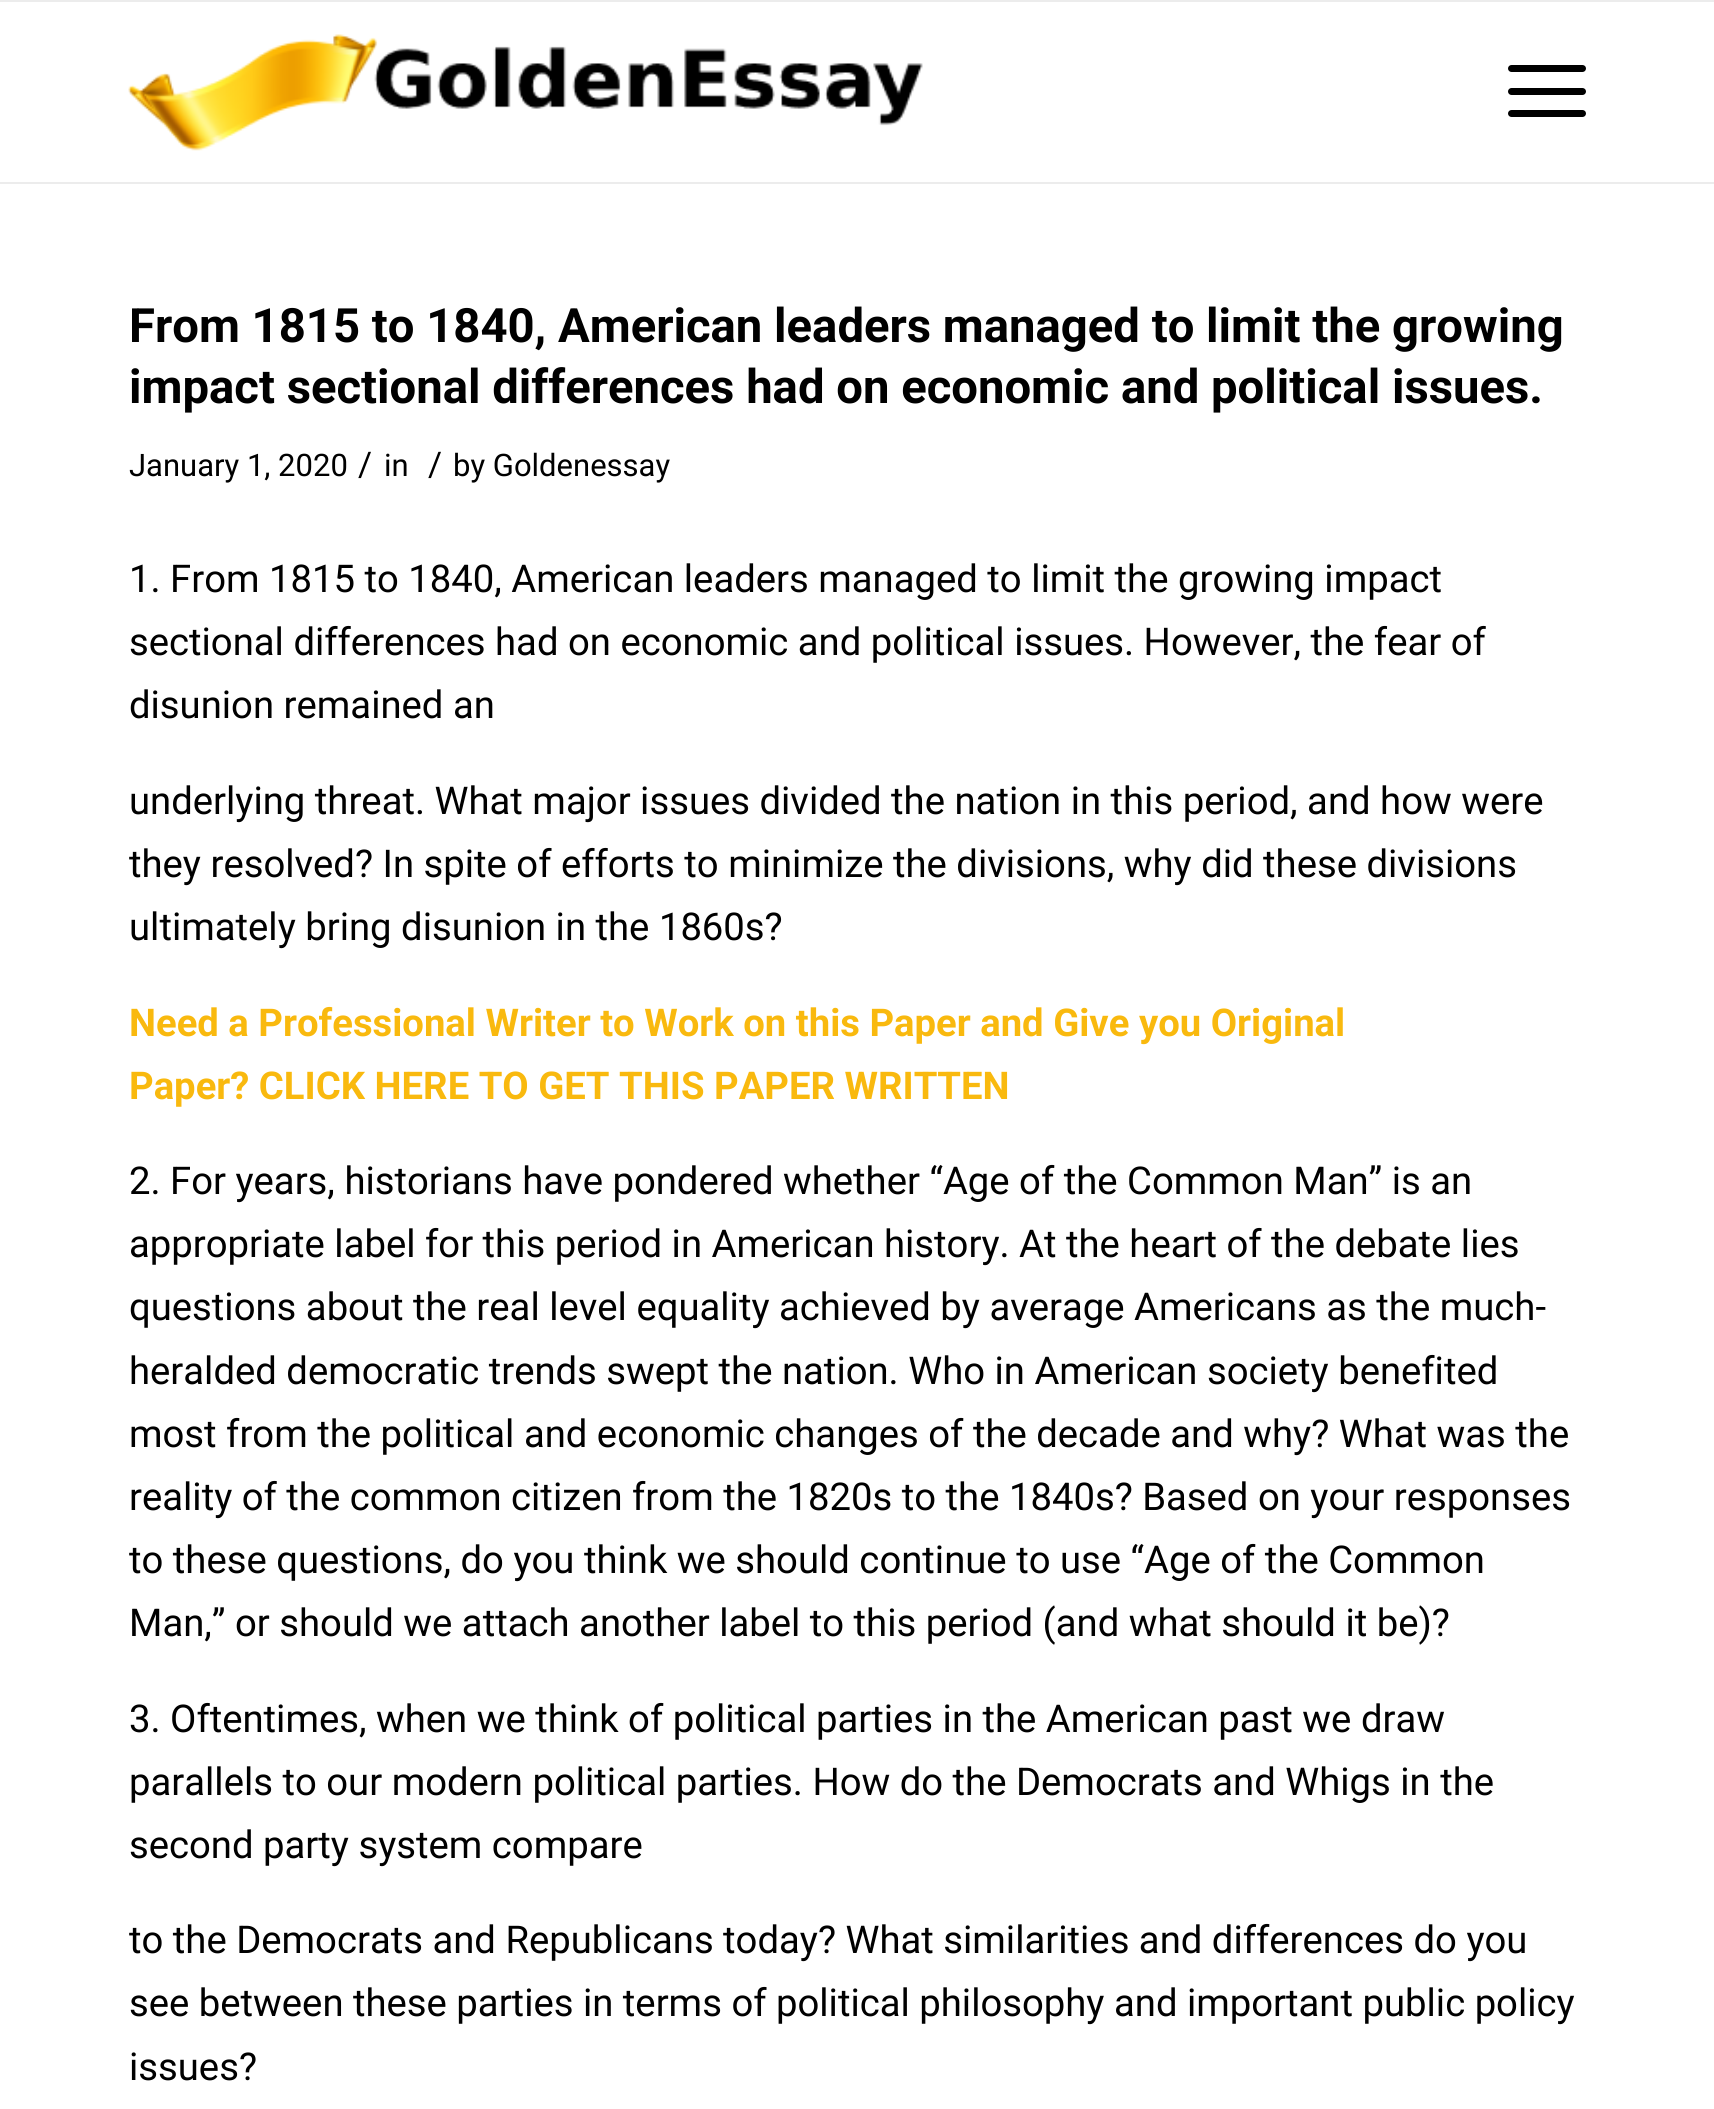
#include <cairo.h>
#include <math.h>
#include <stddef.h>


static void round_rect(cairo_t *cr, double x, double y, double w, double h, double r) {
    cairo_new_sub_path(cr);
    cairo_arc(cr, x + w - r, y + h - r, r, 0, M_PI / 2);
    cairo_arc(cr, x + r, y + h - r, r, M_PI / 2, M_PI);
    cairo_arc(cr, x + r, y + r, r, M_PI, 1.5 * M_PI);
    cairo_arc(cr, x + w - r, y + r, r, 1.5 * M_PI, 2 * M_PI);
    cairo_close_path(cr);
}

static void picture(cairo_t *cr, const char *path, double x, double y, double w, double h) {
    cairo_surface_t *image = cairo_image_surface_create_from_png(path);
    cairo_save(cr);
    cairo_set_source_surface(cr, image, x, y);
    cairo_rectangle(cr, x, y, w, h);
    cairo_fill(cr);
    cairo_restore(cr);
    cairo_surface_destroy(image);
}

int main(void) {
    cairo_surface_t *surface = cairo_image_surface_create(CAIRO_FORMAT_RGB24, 1714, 2109);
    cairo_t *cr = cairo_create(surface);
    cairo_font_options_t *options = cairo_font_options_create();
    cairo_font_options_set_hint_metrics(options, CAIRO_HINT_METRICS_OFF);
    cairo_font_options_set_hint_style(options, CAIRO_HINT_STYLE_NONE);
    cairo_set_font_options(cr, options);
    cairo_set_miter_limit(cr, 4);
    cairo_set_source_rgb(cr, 1, 1, 1);
    cairo_paint(cr);
    cairo_set_source_rgb(cr, 0.922, 0.922, 0.922);
    cairo_rectangle(cr, 0, 0, 1714, 2);
    cairo_fill(cr);
    cairo_rectangle(cr, 0, 182, 1714, 2);
    cairo_fill(cr);
    picture(cr, "img1.png", 128, 34, 795, 117);
    cairo_set_source_rgb(cr, 0, 0, 0);
    round_rect(cr, 1508, 88, 78, 7, 3.5);
    cairo_fill(cr);
    round_rect(cr, 1508, 65, 78, 7, 3.5);
    cairo_fill(cr);
    round_rect(cr, 1508, 110, 78, 7, 3.5);
    cairo_fill(cr);
    cairo_select_font_face(cr, "Roboto", CAIRO_FONT_SLANT_NORMAL, CAIRO_FONT_WEIGHT_BOLD);
    cairo_set_font_size(cr, 47.25);
    cairo_move_to(cr, 129, 342);
    cairo_show_text(cr, "From 1815 to 1840, American leaders managed to limit the growing");
    cairo_move_to(cr, 129, 403);
    cairo_show_text(cr, "impact sectional differences had on economic and political issues.");
    cairo_select_font_face(cr, "Roboto", CAIRO_FONT_SLANT_NORMAL, CAIRO_FONT_WEIGHT_NORMAL);
    cairo_set_font_size(cr, 31);
    cairo_move_to(cr, 129, 476);
    cairo_show_text(cr, "January 1, 2020");
    cairo_set_font_size(cr, 34);
    cairo_move_to(cr, 358, 476);
    cairo_show_text(cr, "/");
    cairo_set_font_size(cr, 31);
    cairo_move_to(cr, 384, 476);
    cairo_show_text(cr, "in");
    cairo_set_font_size(cr, 34);
    cairo_move_to(cr, 428, 476);
    cairo_show_text(cr, "/");
    cairo_set_font_size(cr, 31);
    cairo_move_to(cr, 453, 476);
    cairo_show_text(cr, "by Goldenessay");
    cairo_set_font_size(cr, 38.25);
    cairo_move_to(cr, 129, 592);
    cairo_show_text(cr, "1. From 1815 to 1840, American leaders managed to limit the growing impact");
    cairo_move_to(cr, 129, 655);
    cairo_show_text(cr, "sectional differences had on economic and political issues. However, the fear of");
    cairo_move_to(cr, 129, 718);
    cairo_show_text(cr, "disunion remained an");
    cairo_move_to(cr, 129, 814);
    cairo_show_text(cr, "underlying threat. What major issues divided the nation in this period, and how were");
    cairo_move_to(cr, 129, 877);
    cairo_show_text(cr, "they resolved? In spite of efforts to minimize the divisions, why did these divisions");
    cairo_move_to(cr, 129, 940);
    cairo_show_text(cr, "ultimately bring disunion in the 1860s?");
    cairo_select_font_face(cr, "Roboto", CAIRO_FONT_SLANT_NORMAL, CAIRO_FONT_WEIGHT_BOLD);
    cairo_set_source_rgb(cr, 0.973, 0.725, 0.055);
    cairo_move_to(cr, 129, 1036);
    cairo_show_text(cr, "Need a Professional Writer to Work on this Paper and Give you Original");
    cairo_move_to(cr, 129, 1099);
    cairo_show_text(cr, "Paper? CLICK HERE TO GET THIS PAPER WRITTEN");
    cairo_select_font_face(cr, "Roboto", CAIRO_FONT_SLANT_NORMAL, CAIRO_FONT_WEIGHT_NORMAL);
    cairo_set_source_rgb(cr, 0, 0, 0);
    cairo_move_to(cr, 129, 1194);
    cairo_show_text(cr, "2. For years, historians have pondered whether “Age of the Common Man” is an");
    cairo_move_to(cr, 129, 1257);
    cairo_show_text(cr, "appropriate label for this period in American history. At the heart of the debate lies");
    cairo_move_to(cr, 129, 1320);
    cairo_show_text(cr, "questions about the real level equality achieved by average Americans as the much-");
    cairo_move_to(cr, 129, 1384);
    cairo_show_text(cr, "heralded democratic trends swept the nation. Who in American society benefited");
    cairo_move_to(cr, 129, 1447);
    cairo_show_text(cr, "most from the political and economic changes of the decade and why? What was the");
    cairo_move_to(cr, 129, 1510);
    cairo_show_text(cr, "reality of the common citizen from the 1820s to the 1840s? Based on your responses");
    cairo_move_to(cr, 129, 1573);
    cairo_show_text(cr, "to these questions, do you think we should continue to use “Age of the Common");
    cairo_move_to(cr, 129, 1636);
    cairo_show_text(cr, "Man,” or should we attach another label to this period (and what should it be)?");
    cairo_move_to(cr, 129, 1732);
    cairo_show_text(cr, "3. Oftentimes, when we think of political parties in the American past we draw");
    cairo_move_to(cr, 129, 1795);
    cairo_show_text(cr, "parallels to our modern political parties. How do the Democrats and Whigs in the");
    cairo_move_to(cr, 129, 1858);
    cairo_show_text(cr, "second party system compare");
    cairo_move_to(cr, 129, 1953);
    cairo_show_text(cr, "to the Democrats and Republicans today? What similarities and differences do you");
    cairo_move_to(cr, 129, 2016);
    cairo_show_text(cr, "see between these parties in terms of political philosophy and important public policy");
    cairo_move_to(cr, 129, 2080);
    cairo_show_text(cr, "issues?");
    cairo_surface_write_to_png(surface, "page.png");
    cairo_font_options_destroy(options);
    cairo_destroy(cr);
    cairo_surface_destroy(surface);
    return 0;
}
